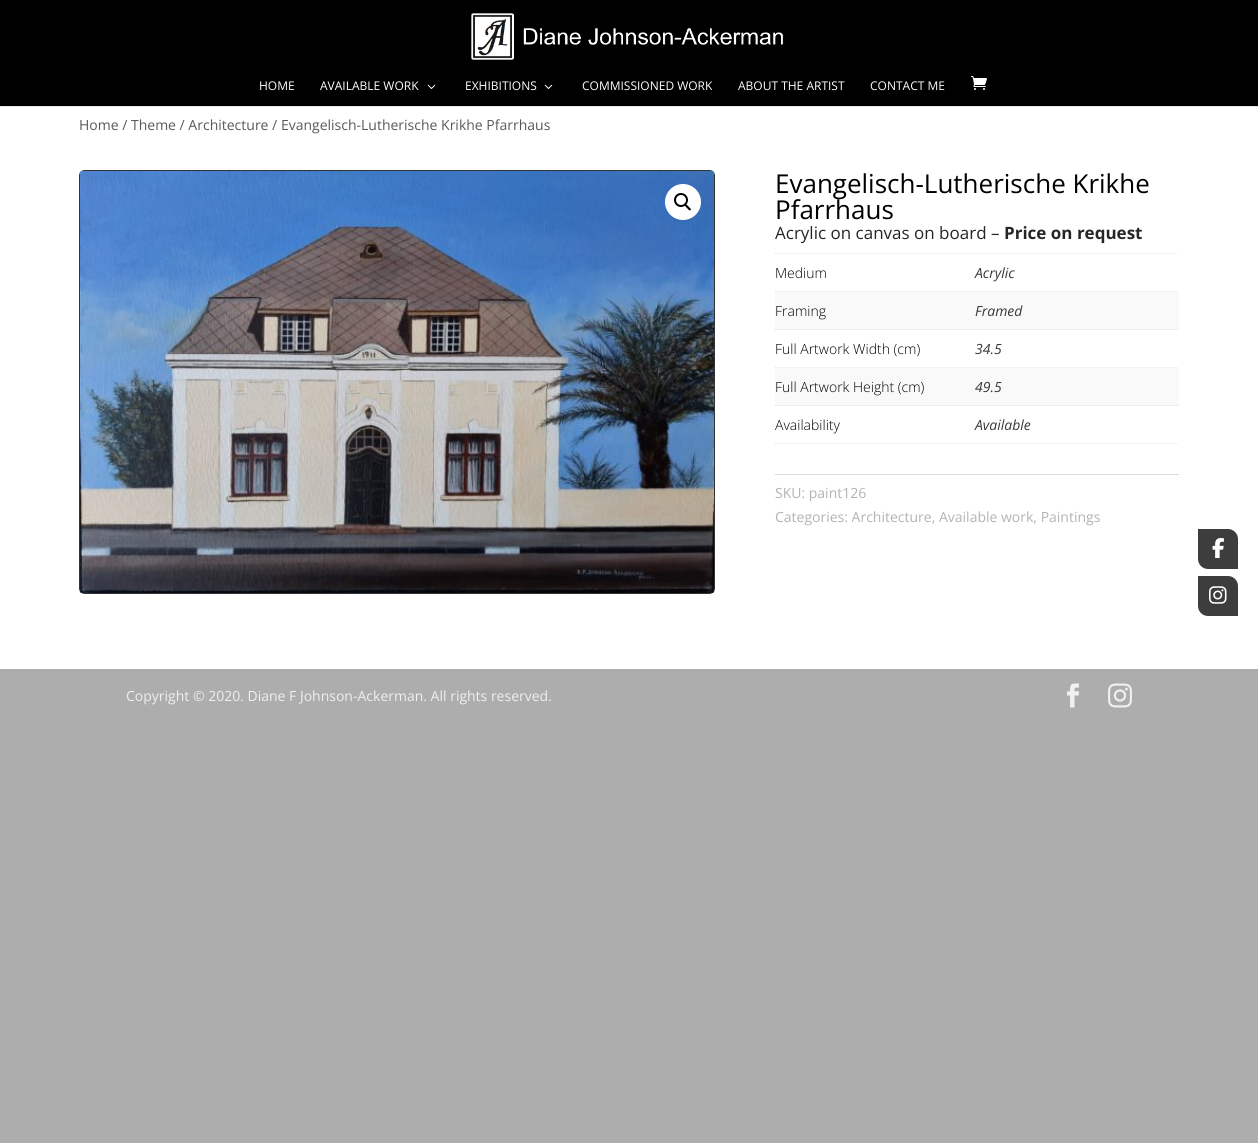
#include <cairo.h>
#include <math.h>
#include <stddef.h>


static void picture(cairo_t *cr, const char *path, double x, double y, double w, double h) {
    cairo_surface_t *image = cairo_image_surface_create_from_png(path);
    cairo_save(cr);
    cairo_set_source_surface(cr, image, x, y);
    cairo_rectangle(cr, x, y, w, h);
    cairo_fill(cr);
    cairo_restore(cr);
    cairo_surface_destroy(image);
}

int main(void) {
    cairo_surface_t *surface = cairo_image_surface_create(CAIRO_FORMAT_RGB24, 1258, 1143);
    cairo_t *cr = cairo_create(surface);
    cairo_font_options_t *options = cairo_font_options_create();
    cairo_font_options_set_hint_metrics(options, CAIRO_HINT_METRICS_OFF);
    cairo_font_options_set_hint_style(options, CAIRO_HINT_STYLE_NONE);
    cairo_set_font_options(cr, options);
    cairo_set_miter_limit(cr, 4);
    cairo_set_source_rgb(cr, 0.678, 0.678, 0.678);
    cairo_paint(cr);
    cairo_set_source_rgb(cr, 0.902, 0.902, 0.902);
    cairo_rectangle(cr, 0, 106, 1258, 1);
    cairo_fill(cr);
    cairo_set_source_rgb(cr, 0, 0, 0);
    cairo_rectangle(cr, 0, 0, 1258, 106);
    cairo_fill(cr);
    picture(cr, "img1.png", 471, 13, 313, 47);
    cairo_select_font_face(cr, "Open Sans", CAIRO_FONT_SLANT_NORMAL, CAIRO_FONT_WEIGHT_NORMAL);
    cairo_set_font_size(cr, 12);
    cairo_set_source_rgb(cr, 1, 1, 1);
    cairo_move_to(cr, 259, 90);
    cairo_show_text(cr, "HOME");
    cairo_move_to(cr, 320, 90);
    cairo_show_text(cr, "AVAILABLE WORK");
    picture(cr, "img2.png", 427, 84, 9, 5);
    cairo_move_to(cr, 465, 90);
    cairo_show_text(cr, "EXHIBITIONS");
    picture(cr, "img2.png", 544, 84, 9, 5);
    cairo_move_to(cr, 582, 90);
    cairo_show_text(cr, "COMMISSIONED WORK");
    cairo_move_to(cr, 738, 90);
    cairo_show_text(cr, "ABOUT THE ARTIST");
    cairo_move_to(cr, 870, 90);
    cairo_show_text(cr, "CONTACT ME");
    picture(cr, "img3.png", 971, 76, 16, 14);
    cairo_rectangle(cr, 0, 107, 1258, 562);
    cairo_fill(cr);
    cairo_set_font_size(cr, 14);
    cairo_set_source_rgb(cr, 0.349, 0.349, 0.349);
    cairo_move_to(cr, 79, 130);
    cairo_show_text(cr, "Home / Theme / Architecture / Evangelisch-Lutherische Krikhe Pfarrhaus");
    cairo_set_source_rgb(cr, 0.2, 0.2, 0.2);
    cairo_set_fill_rule(cr, CAIRO_FILL_RULE_EVEN_ODD);
    cairo_new_path(cr);
    cairo_move_to(cr, 79, 175);
    cairo_line_to(cr, 79, 589);
    cairo_line_to(cr, 80, 592);
    cairo_line_to(cr, 80, 172);
    cairo_close_path(cr);
    cairo_move_to(cr, 84, 170);
    cairo_line_to(cr, 81, 171);
    cairo_line_to(cr, 713, 171);
    cairo_line_to(cr, 710, 170);
    cairo_close_path(cr);
    cairo_move_to(cr, 715, 175);
    cairo_line_to(cr, 714, 172);
    cairo_line_to(cr, 714, 592);
    cairo_line_to(cr, 715, 589);
    cairo_close_path(cr);
    cairo_move_to(cr, 710, 594);
    cairo_line_to(cr, 713, 593);
    cairo_line_to(cr, 81, 593);
    cairo_line_to(cr, 84, 594);
    cairo_close_path(cr);
    cairo_fill(cr);
    picture(cr, "img4.png", 80, 171, 634, 422);
    cairo_set_source_rgb(cr, 1, 1, 1);
    cairo_arc(cr, 683, 202, 18, 0, 2 * M_PI);
    cairo_fill(cr);
    cairo_arc(cr, 681, 200, 6, 0, 2 * M_PI);
    cairo_set_source_rgb(cr, 0, 0, 0);
    cairo_stroke(cr);
    cairo_set_fill_rule(cr, CAIRO_FILL_RULE_WINDING);
    cairo_new_path(cr);
    cairo_move_to(cr, 685, 204.5);
    cairo_curve_to(cr, 686, 203.5, 688, 206, 688.5, 206.5);
    cairo_curve_to(cr, 689, 207.5, 692, 209, 690.5, 210);
    cairo_curve_to(cr, 689.5, 211.5, 687.5, 208.5, 687, 208);
    cairo_curve_to(cr, 686.5, 207.5, 684, 205.5, 685, 204.5);
    cairo_close_path(cr);
    cairo_fill(cr);
    cairo_set_font_size(cr, 26);
    cairo_move_to(cr, 775, 193);
    cairo_show_text(cr, "Evangelisch-Lutherische Krikhe");
    cairo_move_to(cr, 775, 219);
    cairo_show_text(cr, "Pfarrhaus");
    cairo_set_font_size(cr, 17);
    cairo_set_source_rgb(cr, 0.149, 0.149, 0.149);
    cairo_move_to(cr, 775, 239);
    cairo_show_text(cr, "Acrylic on canvas on board –");
    cairo_select_font_face(cr, "Open Sans", CAIRO_FONT_SLANT_NORMAL, CAIRO_FONT_WEIGHT_BOLD);
    cairo_move_to(cr, 1004, 239);
    cairo_show_text(cr, "Price on request");
    cairo_new_path(cr);
    cairo_move_to(cr, 775, 253.5);
    cairo_line_to(cr, 1179, 253.5);
    cairo_set_source_rgb(cr, 0.902, 0.902, 0.902);
    cairo_set_line_width(cr, 1);
    cairo_set_dash(cr, (double[]){1, 1}, 2, 0);
    cairo_stroke(cr);
    cairo_new_path(cr);
    cairo_move_to(cr, 775, 291.5);
    cairo_line_to(cr, 975, 291.5);
    cairo_stroke(cr);
    cairo_select_font_face(cr, "Open Sans Light", CAIRO_FONT_SLANT_NORMAL, CAIRO_FONT_WEIGHT_NORMAL);
    cairo_set_font_size(cr, 14);
    cairo_set_source_rgb(cr, 0, 0, 0);
    cairo_move_to(cr, 775, 278);
    cairo_show_text(cr, "Medium");
    cairo_new_path(cr);
    cairo_move_to(cr, 975, 291.5);
    cairo_line_to(cr, 1179, 291.5);
    cairo_set_source_rgb(cr, 0.902, 0.902, 0.902);
    cairo_stroke(cr);
    cairo_select_font_face(cr, "Open Sans", CAIRO_FONT_SLANT_ITALIC, CAIRO_FONT_WEIGHT_NORMAL);
    cairo_set_source_rgb(cr, 0.22, 0.22, 0.22);
    cairo_move_to(cr, 975, 278);
    cairo_show_text(cr, "Acrylic");
    cairo_set_source_rgb(cr, 0.976, 0.976, 0.976);
    cairo_rectangle(cr, 775, 292, 404, 38);
    cairo_fill(cr);
    cairo_new_path(cr);
    cairo_move_to(cr, 775, 329.5);
    cairo_line_to(cr, 975, 329.5);
    cairo_set_source_rgb(cr, 0.878, 0.878, 0.878);
    cairo_stroke(cr);
    cairo_select_font_face(cr, "Open Sans Light", CAIRO_FONT_SLANT_NORMAL, CAIRO_FONT_WEIGHT_NORMAL);
    cairo_set_source_rgb(cr, 0, 0, 0);
    cairo_move_to(cr, 775, 316);
    cairo_show_text(cr, "Framing");
    cairo_new_path(cr);
    cairo_move_to(cr, 975, 329.5);
    cairo_line_to(cr, 1179, 329.5);
    cairo_set_source_rgb(cr, 0.878, 0.878, 0.878);
    cairo_stroke(cr);
    cairo_select_font_face(cr, "Open Sans", CAIRO_FONT_SLANT_ITALIC, CAIRO_FONT_WEIGHT_NORMAL);
    cairo_set_source_rgb(cr, 0.22, 0.22, 0.22);
    cairo_move_to(cr, 975, 316);
    cairo_show_text(cr, "Framed");
    cairo_new_path(cr);
    cairo_move_to(cr, 775, 367.5);
    cairo_line_to(cr, 975, 367.5);
    cairo_set_source_rgb(cr, 0.902, 0.902, 0.902);
    cairo_stroke(cr);
    cairo_select_font_face(cr, "Open Sans Light", CAIRO_FONT_SLANT_NORMAL, CAIRO_FONT_WEIGHT_NORMAL);
    cairo_set_source_rgb(cr, 0, 0, 0);
    cairo_move_to(cr, 775, 354);
    cairo_show_text(cr, "Full Artwork Width (cm)");
    cairo_new_path(cr);
    cairo_move_to(cr, 975, 367.5);
    cairo_line_to(cr, 1179, 367.5);
    cairo_set_source_rgb(cr, 0.902, 0.902, 0.902);
    cairo_stroke(cr);
    cairo_select_font_face(cr, "Open Sans", CAIRO_FONT_SLANT_ITALIC, CAIRO_FONT_WEIGHT_NORMAL);
    cairo_set_source_rgb(cr, 0.22, 0.22, 0.22);
    cairo_move_to(cr, 975, 354);
    cairo_show_text(cr, "34.5");
    cairo_set_source_rgb(cr, 0.976, 0.976, 0.976);
    cairo_rectangle(cr, 775, 368, 404, 38);
    cairo_fill(cr);
    cairo_new_path(cr);
    cairo_move_to(cr, 775, 405.5);
    cairo_line_to(cr, 975, 405.5);
    cairo_set_source_rgb(cr, 0.878, 0.878, 0.878);
    cairo_stroke(cr);
    cairo_select_font_face(cr, "Open Sans Light", CAIRO_FONT_SLANT_NORMAL, CAIRO_FONT_WEIGHT_NORMAL);
    cairo_set_source_rgb(cr, 0, 0, 0);
    cairo_move_to(cr, 775, 392);
    cairo_show_text(cr, "Full Artwork Height (cm)");
    cairo_new_path(cr);
    cairo_move_to(cr, 975, 405.5);
    cairo_line_to(cr, 1179, 405.5);
    cairo_set_source_rgb(cr, 0.878, 0.878, 0.878);
    cairo_stroke(cr);
    cairo_select_font_face(cr, "Open Sans", CAIRO_FONT_SLANT_ITALIC, CAIRO_FONT_WEIGHT_NORMAL);
    cairo_set_source_rgb(cr, 0.22, 0.22, 0.22);
    cairo_move_to(cr, 975, 392);
    cairo_show_text(cr, "49.5");
    cairo_new_path(cr);
    cairo_move_to(cr, 775, 443.5);
    cairo_line_to(cr, 975, 443.5);
    cairo_set_source_rgb(cr, 0.902, 0.902, 0.902);
    cairo_stroke(cr);
    cairo_select_font_face(cr, "Open Sans Light", CAIRO_FONT_SLANT_NORMAL, CAIRO_FONT_WEIGHT_NORMAL);
    cairo_set_source_rgb(cr, 0, 0, 0);
    cairo_move_to(cr, 775, 430);
    cairo_show_text(cr, "Availability");
    cairo_new_path(cr);
    cairo_move_to(cr, 975, 443.5);
    cairo_line_to(cr, 1179, 443.5);
    cairo_set_source_rgb(cr, 0.902, 0.902, 0.902);
    cairo_stroke(cr);
    cairo_select_font_face(cr, "Open Sans", CAIRO_FONT_SLANT_ITALIC, CAIRO_FONT_WEIGHT_NORMAL);
    cairo_set_source_rgb(cr, 0.22, 0.22, 0.22);
    cairo_move_to(cr, 975, 430);
    cairo_show_text(cr, "Available");
    cairo_set_source_rgb(cr, 0.855, 0.855, 0.855);
    cairo_rectangle(cr, 775, 474, 404, 1);
    cairo_fill(cr);
    cairo_select_font_face(cr, "Open Sans", CAIRO_FONT_SLANT_NORMAL, CAIRO_FONT_WEIGHT_NORMAL);
    cairo_set_source_rgb(cr, 0.702, 0.702, 0.702);
    cairo_move_to(cr, 775, 498);
    cairo_show_text(cr, "SKU: paint126");
    cairo_move_to(cr, 775, 522);
    cairo_show_text(cr, "Categories: Architecture, Available work, Paintings");
    cairo_set_source_rgb(cr, 0.937, 0.937, 0.937);
    cairo_move_to(cr, 126, 701);
    cairo_show_text(cr, "Copyright © 2020. Diane F Johnson-Ackerman. All rights reserved.");
    picture(cr, "img5.png", 1067, 683, 12, 25);
    picture(cr, "img6.png", 1108, 683, 24, 25);
    cairo_set_source_rgb(cr, 0.239, 0.239, 0.239);
    cairo_new_path(cr);
    cairo_move_to(cr, 1198, 529);
    cairo_line_to(cr, 1228, 529);
    cairo_curve_to(cr, 1233.5, 529, 1238, 533.5, 1238, 539);
    cairo_line_to(cr, 1238, 569);
    cairo_line_to(cr, 1208, 569);
    cairo_curve_to(cr, 1202.5, 569, 1198, 564.5, 1198, 559);
    cairo_close_path(cr);
    cairo_fill(cr);
    picture(cr, "img7.png", 1212, 538, 12, 20);
    cairo_new_path(cr);
    cairo_move_to(cr, 1198, 576);
    cairo_line_to(cr, 1228, 576);
    cairo_curve_to(cr, 1233.5, 576, 1238, 580.5, 1238, 586);
    cairo_line_to(cr, 1238, 616);
    cairo_line_to(cr, 1208, 616);
    cairo_curve_to(cr, 1202.5, 616, 1198, 611.5, 1198, 606);
    cairo_close_path(cr);
    cairo_fill(cr);
    picture(cr, "img8.png", 1209, 586, 18, 18);
    cairo_surface_write_to_png(surface, "page.png");
    cairo_font_options_destroy(options);
    cairo_destroy(cr);
    cairo_surface_destroy(surface);
    return 0;
}
